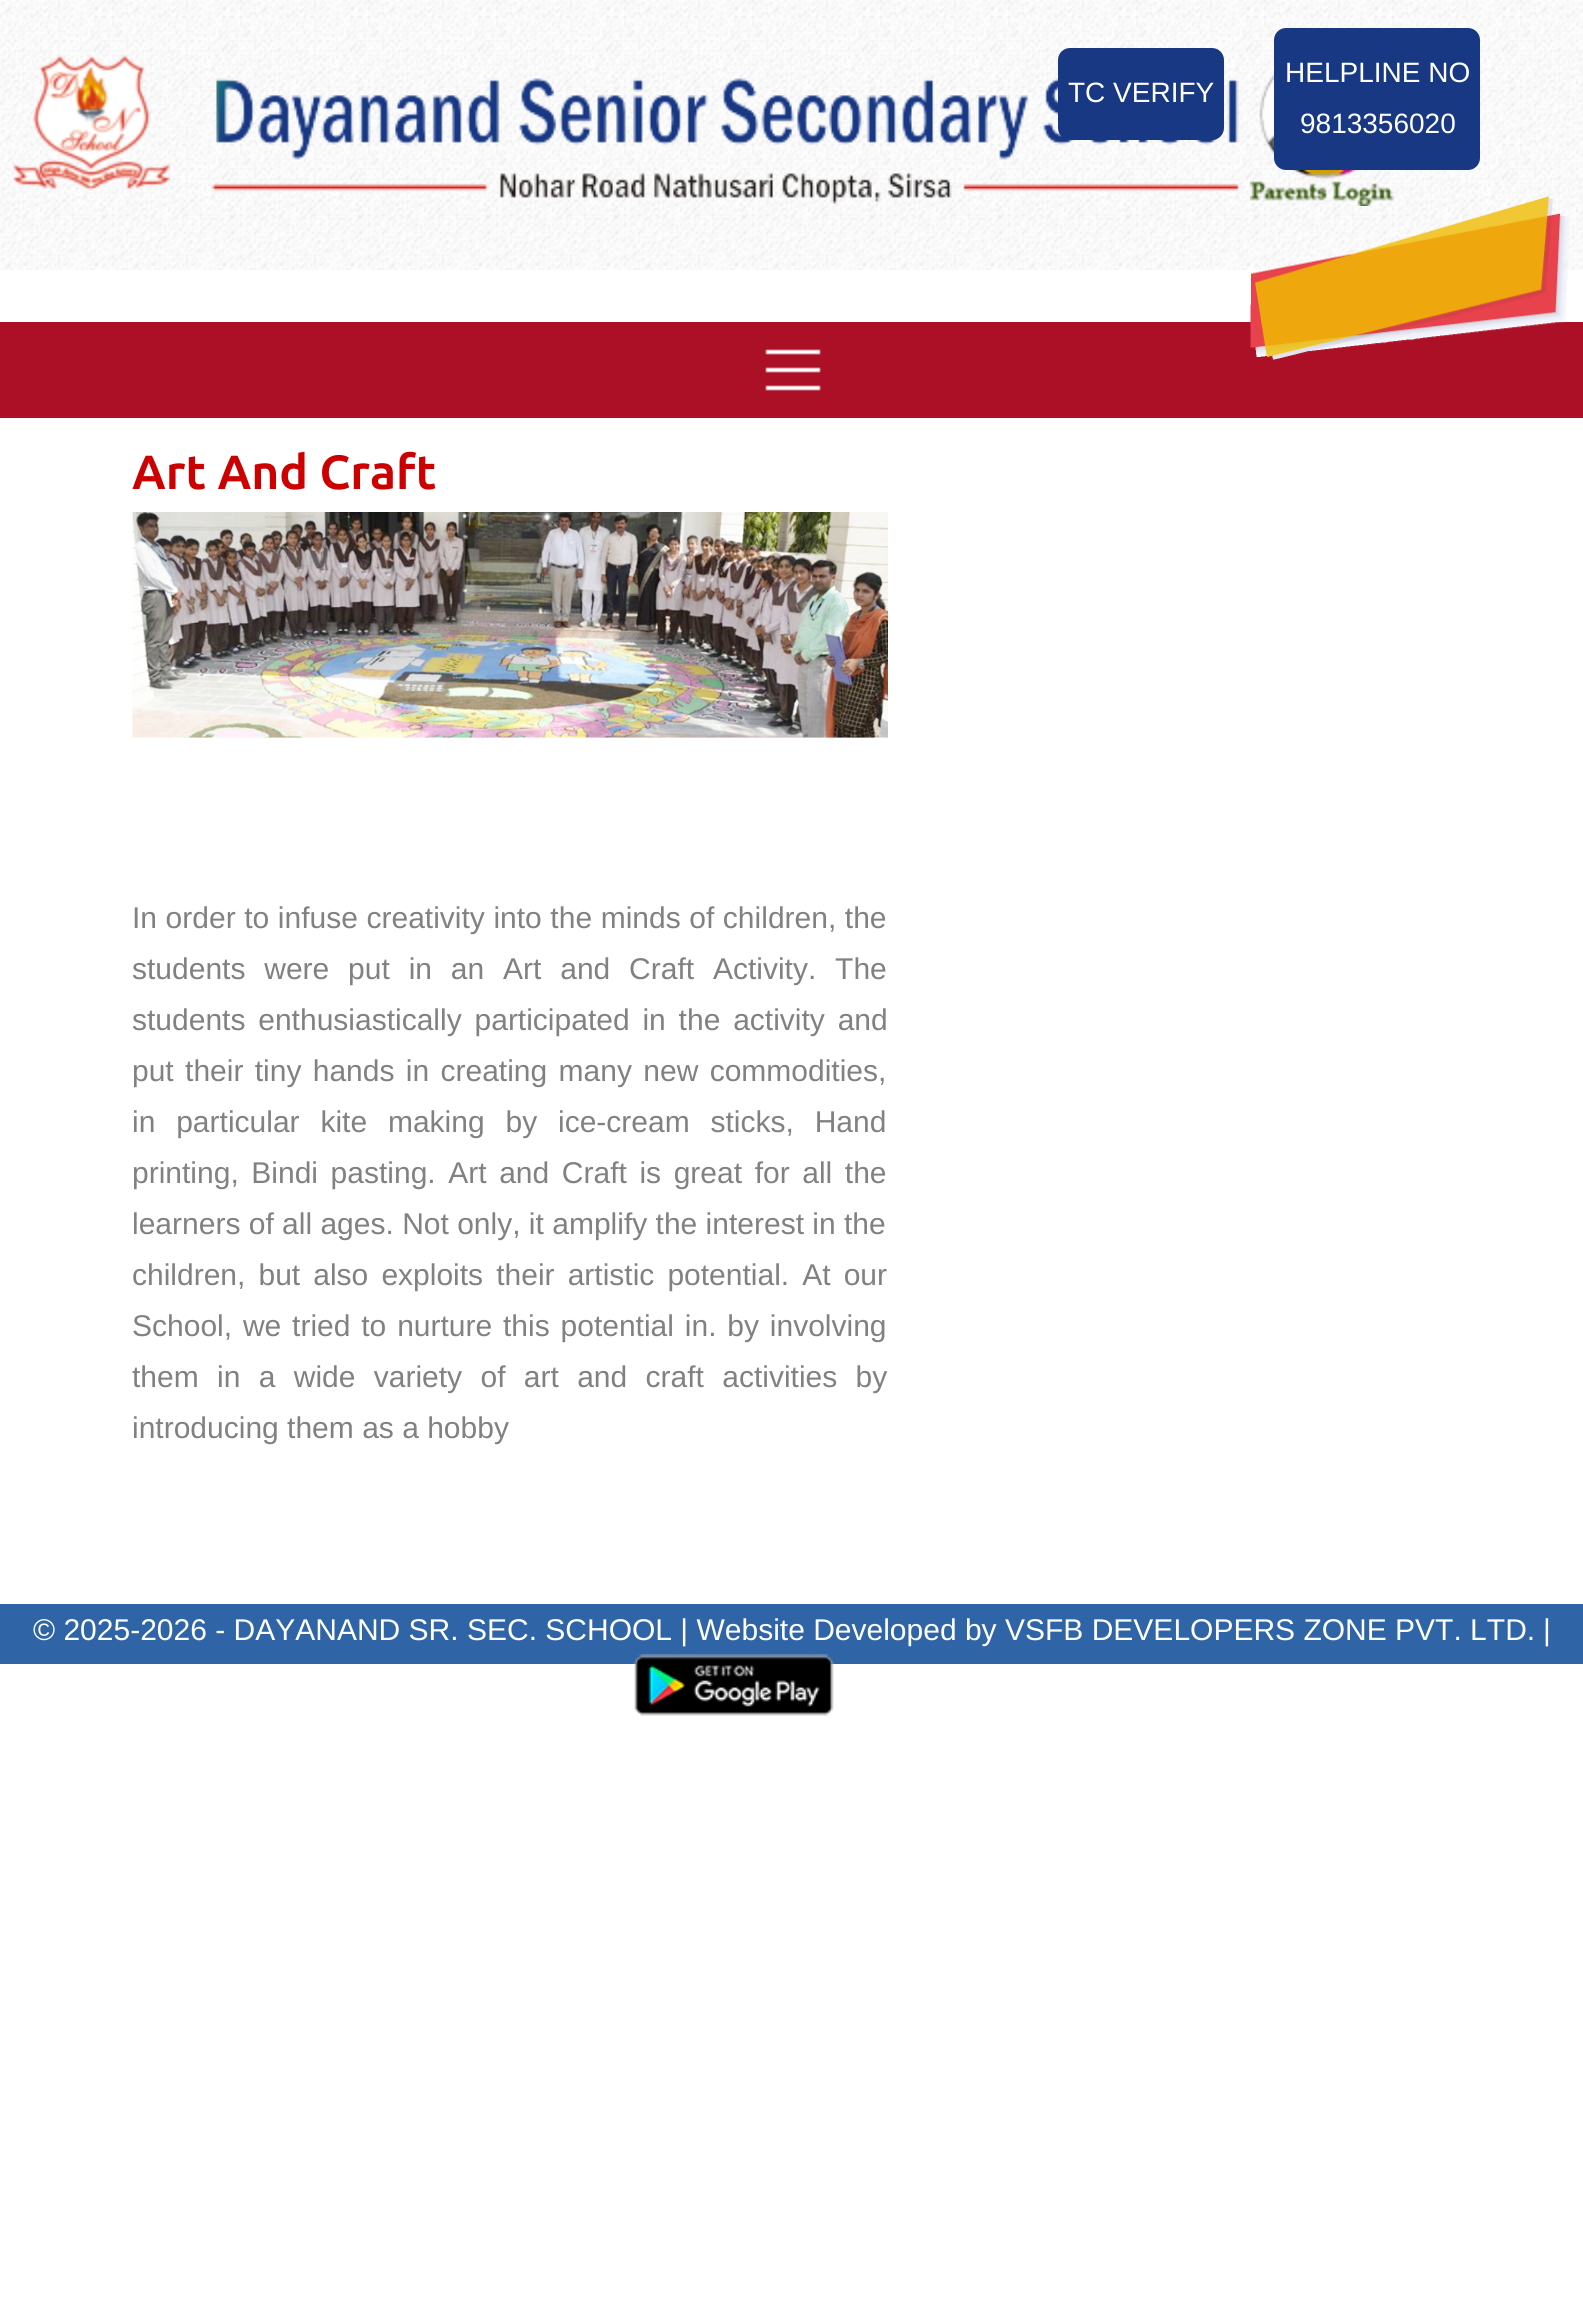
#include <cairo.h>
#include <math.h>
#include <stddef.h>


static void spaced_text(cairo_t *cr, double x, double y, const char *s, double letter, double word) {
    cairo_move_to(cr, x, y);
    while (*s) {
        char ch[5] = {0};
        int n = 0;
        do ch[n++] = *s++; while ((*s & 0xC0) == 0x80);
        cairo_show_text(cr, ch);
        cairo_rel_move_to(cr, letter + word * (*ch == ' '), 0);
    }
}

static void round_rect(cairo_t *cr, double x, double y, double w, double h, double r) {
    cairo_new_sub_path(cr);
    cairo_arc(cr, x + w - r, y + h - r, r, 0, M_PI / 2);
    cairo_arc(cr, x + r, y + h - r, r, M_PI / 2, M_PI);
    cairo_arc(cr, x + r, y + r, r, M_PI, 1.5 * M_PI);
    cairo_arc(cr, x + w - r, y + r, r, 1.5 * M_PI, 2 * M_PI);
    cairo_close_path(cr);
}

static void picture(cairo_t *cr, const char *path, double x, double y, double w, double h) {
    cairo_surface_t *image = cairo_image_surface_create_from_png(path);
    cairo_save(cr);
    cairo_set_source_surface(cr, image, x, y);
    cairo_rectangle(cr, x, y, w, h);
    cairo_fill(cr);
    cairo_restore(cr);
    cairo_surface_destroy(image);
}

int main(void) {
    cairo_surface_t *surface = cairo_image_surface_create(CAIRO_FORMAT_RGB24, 1583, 2305);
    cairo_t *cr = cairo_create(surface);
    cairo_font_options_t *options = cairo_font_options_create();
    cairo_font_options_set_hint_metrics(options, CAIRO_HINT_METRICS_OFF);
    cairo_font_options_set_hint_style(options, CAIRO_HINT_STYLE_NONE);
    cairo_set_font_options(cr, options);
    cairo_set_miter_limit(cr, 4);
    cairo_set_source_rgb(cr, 1, 1, 1);
    cairo_paint(cr);
    picture(cr, "img1.png", 0, 0, 1583, 270);
    picture(cr, "img2.png", 13, 55, 158, 136);
    picture(cr, "img4.png", 1250, 73, 144, 133);
    cairo_set_source_rgb(cr, 0.094, 0.22, 0.518);
    round_rect(cr, 1274, 28, 206, 142, 12);
    cairo_fill(cr);
    cairo_select_font_face(cr, "Liberation Sans", CAIRO_FONT_SLANT_NORMAL, CAIRO_FONT_WEIGHT_NORMAL);
    cairo_set_font_size(cr, 28);
    cairo_set_source_rgb(cr, 0.996, 0.996, 0.996);
    cairo_move_to(cr, 1285, 82);
    cairo_show_text(cr, "HELPLINE NO");
    cairo_move_to(cr, 1300, 133);
    cairo_show_text(cr, "9813356020");
    picture(cr, "img3.png", 211, 78, 1028, 126);
    cairo_set_source_rgb(cr, 0.094, 0.22, 0.518);
    round_rect(cr, 1058, 48, 166, 92, 12);
    cairo_fill(cr);
    cairo_set_source_rgb(cr, 0.996, 0.996, 0.996);
    cairo_move_to(cr, 1068, 102);
    cairo_show_text(cr, "TC VERIFY");
    cairo_set_source_rgb(cr, 0.675, 0.063, 0.149);
    cairo_rectangle(cr, 0, 322, 1583, 96);
    cairo_fill(cr);
    picture(cr, "img5.png", 1250, 196, 320, 164);
    picture(cr, "img6.png", 765, 349, 56, 42);
    cairo_select_font_face(cr, "Ubuntu", CAIRO_FONT_SLANT_NORMAL, CAIRO_FONT_WEIGHT_BOLD);
    cairo_set_font_size(cr, 48);
    cairo_set_source_rgb(cr, 0.8, 0, 0);
    cairo_move_to(cr, 132, 489);
    cairo_show_text(cr, "Art And Craft");
    picture(cr, "img7.png", 132, 512, 756, 226);
    cairo_select_font_face(cr, "Liberation Sans", CAIRO_FONT_SLANT_NORMAL, CAIRO_FONT_WEIGHT_NORMAL);
    cairo_set_font_size(cr, 30);
    cairo_set_source_rgb(cr, 0.51, 0.506, 0.506);
    spaced_text(cr, 132, 928, "In order to infuse creativity into the minds of children, the", 0, 0.25);
    spaced_text(cr, 132, 979, "students were put in an Art and Craft Activity. The", 0, 10.5);
    spaced_text(cr, 132, 1030, "students enthusiastically participated in the activity and", 0, 4.5);
    spaced_text(cr, 132, 1081, "put their tiny hands in creating many new commodities,", 0, 3);
    spaced_text(cr, 132, 1132, "in particular kite making by ice-cream sticks, Hand", 0, 12.5);
    spaced_text(cr, 132, 1183, "printing, Bindi pasting. Art and Craft is great for all the", 0, 4.25);
    cairo_move_to(cr, 132, 1234);
    cairo_show_text(cr, "learners of all ages. Not only, it amplify the interest in the");
    spaced_text(cr, 132, 1285, "children, but also exploits their artistic potential. At our", 0, 4.75);
    spaced_text(cr, 132, 1336, "School, we tried to nurture this potential in. by involving", 0, 2.5);
    spaced_text(cr, 132, 1387, "them in a wide variety of art and craft activities by", 0, 10);
    cairo_move_to(cr, 132, 1438);
    cairo_show_text(cr, "introducing them as a hobby");
    cairo_set_source_rgb(cr, 0.184, 0.392, 0.651);
    cairo_rectangle(cr, 0, 1604, 1583, 60);
    cairo_fill(cr);
    cairo_set_source_rgb(cr, 0.996, 0.996, 0.996);
    cairo_move_to(cr, 33, 1640);
    cairo_show_text(cr, "© 2025-2026 - DAYANAND SR. SEC. SCHOOL | Website Developed by");
    cairo_move_to(cr, 1005, 1640);
    cairo_show_text(cr, "VSFB DEVELOPERS ZONE PVT. LTD.");
    cairo_move_to(cr, 1543, 1640);
    cairo_show_text(cr, "|");
    picture(cr, "img8.png", 634, 1654, 200, 62);
    cairo_surface_write_to_png(surface, "page.png");
    cairo_font_options_destroy(options);
    cairo_destroy(cr);
    cairo_surface_destroy(surface);
    return 0;
}
